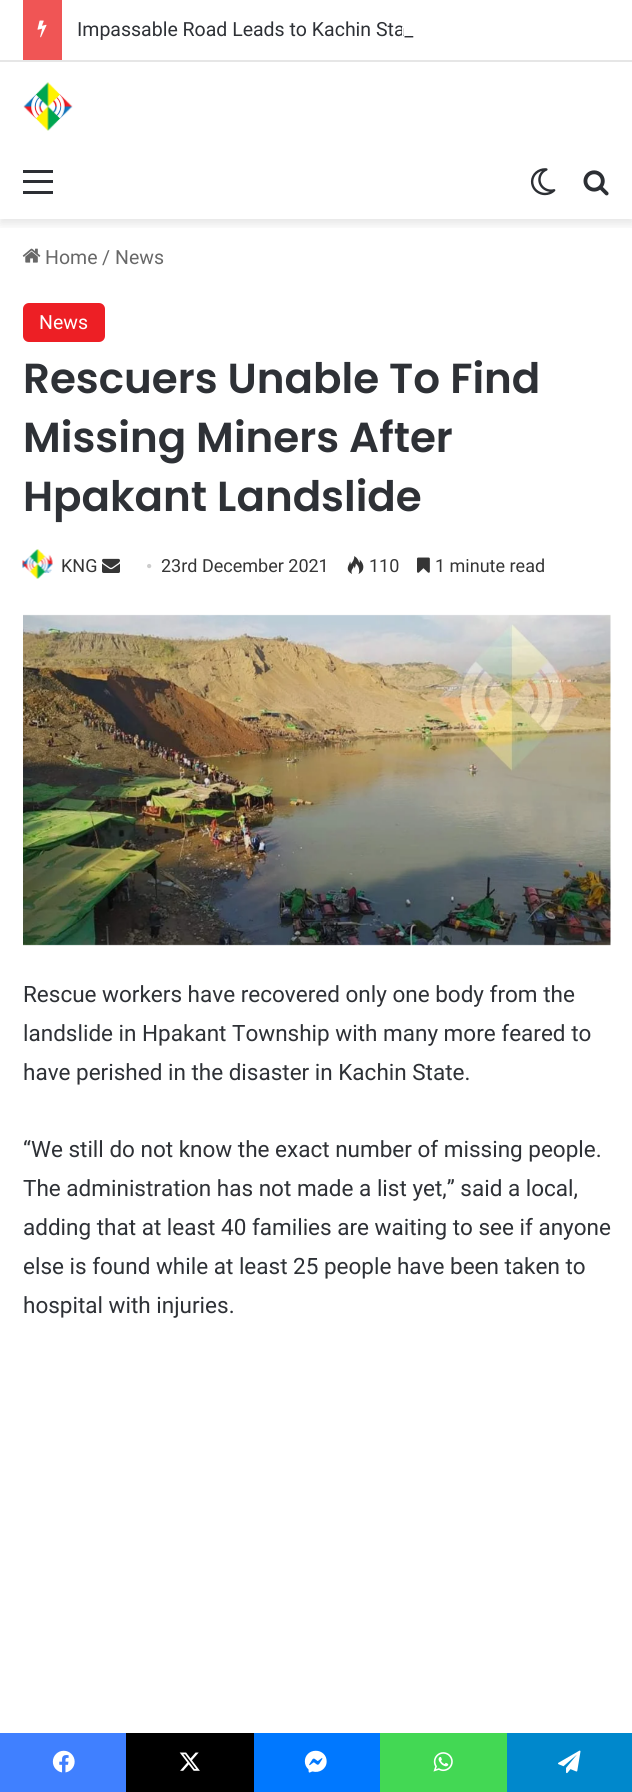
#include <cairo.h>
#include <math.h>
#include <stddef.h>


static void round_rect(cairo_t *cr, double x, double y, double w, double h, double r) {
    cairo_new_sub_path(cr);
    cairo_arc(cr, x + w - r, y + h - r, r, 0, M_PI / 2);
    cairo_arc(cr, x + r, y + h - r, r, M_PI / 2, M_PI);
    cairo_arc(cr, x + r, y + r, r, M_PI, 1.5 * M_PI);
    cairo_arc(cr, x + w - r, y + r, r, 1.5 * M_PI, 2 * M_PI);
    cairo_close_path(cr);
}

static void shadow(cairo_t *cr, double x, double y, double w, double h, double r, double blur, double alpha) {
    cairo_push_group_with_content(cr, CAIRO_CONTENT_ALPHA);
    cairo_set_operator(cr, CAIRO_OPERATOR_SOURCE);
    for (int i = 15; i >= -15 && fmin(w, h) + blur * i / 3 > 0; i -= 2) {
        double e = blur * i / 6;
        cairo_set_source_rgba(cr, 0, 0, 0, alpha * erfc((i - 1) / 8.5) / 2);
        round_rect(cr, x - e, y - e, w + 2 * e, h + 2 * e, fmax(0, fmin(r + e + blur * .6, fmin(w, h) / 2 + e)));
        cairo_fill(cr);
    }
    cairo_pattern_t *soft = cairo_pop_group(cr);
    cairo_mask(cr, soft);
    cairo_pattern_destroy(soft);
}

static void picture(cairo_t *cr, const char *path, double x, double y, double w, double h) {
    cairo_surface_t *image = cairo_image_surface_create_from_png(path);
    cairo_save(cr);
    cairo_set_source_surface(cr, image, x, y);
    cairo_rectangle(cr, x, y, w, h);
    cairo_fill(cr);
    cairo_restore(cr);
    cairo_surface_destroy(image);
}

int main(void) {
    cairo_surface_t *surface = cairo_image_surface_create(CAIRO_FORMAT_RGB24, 632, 1792);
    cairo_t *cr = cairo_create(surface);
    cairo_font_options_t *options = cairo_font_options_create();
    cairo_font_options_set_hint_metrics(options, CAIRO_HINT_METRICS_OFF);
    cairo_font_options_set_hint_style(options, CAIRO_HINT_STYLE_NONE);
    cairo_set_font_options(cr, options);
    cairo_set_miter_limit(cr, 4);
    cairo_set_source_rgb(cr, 1, 1, 1);
    cairo_paint(cr);
    cairo_save(cr);
    cairo_rectangle(cr, 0, 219, 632, 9);
    cairo_clip(cr);
    cairo_set_source_rgb(cr, 0, 0, 0);
    shadow(cr, 0, 66, 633, 158, 0, 5, 0.1);
    cairo_restore(cr);
    cairo_set_source_rgb(cr, 0.902, 0.902, 0.902);
    cairo_rectangle(cr, 0, 60, 632, 2);
    cairo_fill(cr);
    cairo_set_source_rgb(cr, 0.941, 0.333, 0.333);
    cairo_rectangle(cr, 23, 0, 39, 60);
    cairo_fill(cr);
    picture(cr, "img1.png", 37, 20, 10, 18);
    cairo_select_font_face(cr, "Roboto", CAIRO_FONT_SLANT_NORMAL, CAIRO_FONT_WEIGHT_NORMAL);
    cairo_set_font_size(cr, 19.5);
    cairo_set_source_rgb(cr, 0.18, 0.192, 0.212);
    cairo_move_to(cr, 77, 36);
    cairo_show_text(cr, "Impassable Road Leads to Kachin Sta_");
    cairo_set_source_rgb(cr, 1, 1, 1);
    cairo_rectangle(cr, 402, 27, 1, 9);
    cairo_fill(cr);
    picture(cr, "img2.png", 23, 82, 50, 49);
    cairo_set_source_rgb(cr, 0.173, 0.184, 0.204);
    cairo_rectangle(cr, 23, 180, 30, 3);
    cairo_fill(cr);
    cairo_rectangle(cr, 23, 170, 30, 3);
    cairo_fill(cr);
    cairo_rectangle(cr, 23, 191, 30, 3);
    cairo_fill(cr);
    picture(cr, "img3.png", 530, 168, 26, 28);
    picture(cr, "img4.png", 583, 170, 26, 26);
    picture(cr, "img5.png", 22, 248, 19, 15);
    cairo_set_source_rgb(cr, 0.408, 0.408, 0.408);
    cairo_move_to(cr, 45, 264);
    cairo_show_text(cr, "Home");
    cairo_move_to(cr, 102, 264);
    cairo_show_text(cr, "/");
    cairo_move_to(cr, 115, 264);
    cairo_show_text(cr, "News");
    cairo_set_source_rgb(cr, 0.929, 0.122, 0.145);
    round_rect(cr, 23, 303, 82, 39, 6);
    cairo_fill(cr);
    cairo_set_source_rgb(cr, 1, 1, 1);
    cairo_move_to(cr, 39, 329);
    cairo_show_text(cr, "News");
    cairo_select_font_face(cr, "Poppins SemiBold", CAIRO_FONT_SLANT_NORMAL, CAIRO_FONT_WEIGHT_NORMAL);
    cairo_set_font_size(cr, 42);
    cairo_set_source_rgb(cr, 0.18, 0.192, 0.212);
    cairo_move_to(cr, 23, 393);
    cairo_show_text(cr, "Rescuers Unable To Find");
    cairo_move_to(cr, 23, 452);
    cairo_show_text(cr, "Missing Miners After");
    cairo_move_to(cr, 23, 511);
    cairo_show_text(cr, "Hpakant Landslide");
    picture(cr, "img6.png", 22, 549, 31, 30);
    cairo_select_font_face(cr, "Roboto", CAIRO_FONT_SLANT_NORMAL, CAIRO_FONT_WEIGHT_NORMAL);
    cairo_set_font_size(cr, 18);
    cairo_set_source_rgb(cr, 0.208, 0.208, 0.208);
    cairo_move_to(cr, 61, 572);
    cairo_show_text(cr, "KNG");
    picture(cr, "img7.png", 102, 558, 18, 15);
    cairo_select_font_face(cr, "Liberation Serif", CAIRO_FONT_SLANT_NORMAL, CAIRO_FONT_WEIGHT_NORMAL);
    cairo_set_source_rgb(cr, 0.804, 0.804, 0.804);
    cairo_move_to(cr, 146, 572);
    cairo_show_text(cr, "•");
    cairo_select_font_face(cr, "Roboto", CAIRO_FONT_SLANT_NORMAL, CAIRO_FONT_WEIGHT_NORMAL);
    cairo_set_source_rgb(cr, 0.208, 0.208, 0.208);
    cairo_move_to(cr, 161, 572);
    cairo_show_text(cr, "23rd December 2021");
    picture(cr, "img8.png", 347, 556, 17, 18);
    cairo_move_to(cr, 369, 572);
    cairo_show_text(cr, "110");
    picture(cr, "img9.png", 417, 557, 13, 16);
    cairo_move_to(cr, 435, 572);
    cairo_show_text(cr, "1 minute read");
    picture(cr, "img10.png", 23, 614, 588, 332);
    cairo_set_font_size(cr, 22.5);
    cairo_set_source_rgb(cr, 0.18, 0.192, 0.212);
    cairo_move_to(cr, 23, 1002);
    cairo_show_text(cr, "Rescue workers have recovered only one body from the");
    cairo_move_to(cr, 23, 1041);
    cairo_show_text(cr, "landslide in Hpakant Township with many more feared to");
    cairo_move_to(cr, 23, 1080);
    cairo_show_text(cr, "have perished in the disaster in Kachin State.");
    cairo_move_to(cr, 23, 1157);
    cairo_show_text(cr, "“We still do not know the exact number of missing people.");
    cairo_move_to(cr, 23, 1196);
    cairo_show_text(cr, "The administration has not made a list yet,” said a local,");
    cairo_move_to(cr, 23, 1235);
    cairo_show_text(cr, "adding that at least 40 families are waiting to see if anyone");
    cairo_move_to(cr, 23, 1274);
    cairo_show_text(cr, "else is found while at least 25 people have been taken to");
    cairo_move_to(cr, 23, 1313);
    cairo_show_text(cr, "hospital with injuries.");
    cairo_set_source_rgb(cr, 0.251, 0.502, 1);
    cairo_rectangle(cr, 0, 1733, 126, 59);
    cairo_fill(cr);
    picture(cr, "img11.png", 52, 1750, 23, 23);
    cairo_set_source_rgb(cr, 0, 0, 0);
    cairo_rectangle(cr, 126, 1733, 128, 59);
    cairo_fill(cr);
    picture(cr, "img12.png", 179, 1752, 21, 19);
    cairo_set_source_rgb(cr, 0, 0.471, 1);
    cairo_rectangle(cr, 254, 1733, 126, 59);
    cairo_fill(cr);
    picture(cr, "img13.png", 304, 1750, 23, 23);
    cairo_set_source_rgb(cr, 0.263, 0.847, 0.329);
    cairo_rectangle(cr, 380, 1733, 127, 59);
    cairo_fill(cr);
    picture(cr, "img14.png", 433, 1752, 20, 20);
    cairo_set_source_rgb(cr, 0, 0.533, 0.8);
    cairo_rectangle(cr, 507, 1733, 125, 59);
    cairo_fill(cr);
    picture(cr, "img15.png", 558, 1750, 23, 24);
    cairo_surface_write_to_png(surface, "page.png");
    cairo_font_options_destroy(options);
    cairo_destroy(cr);
    cairo_surface_destroy(surface);
    return 0;
}
